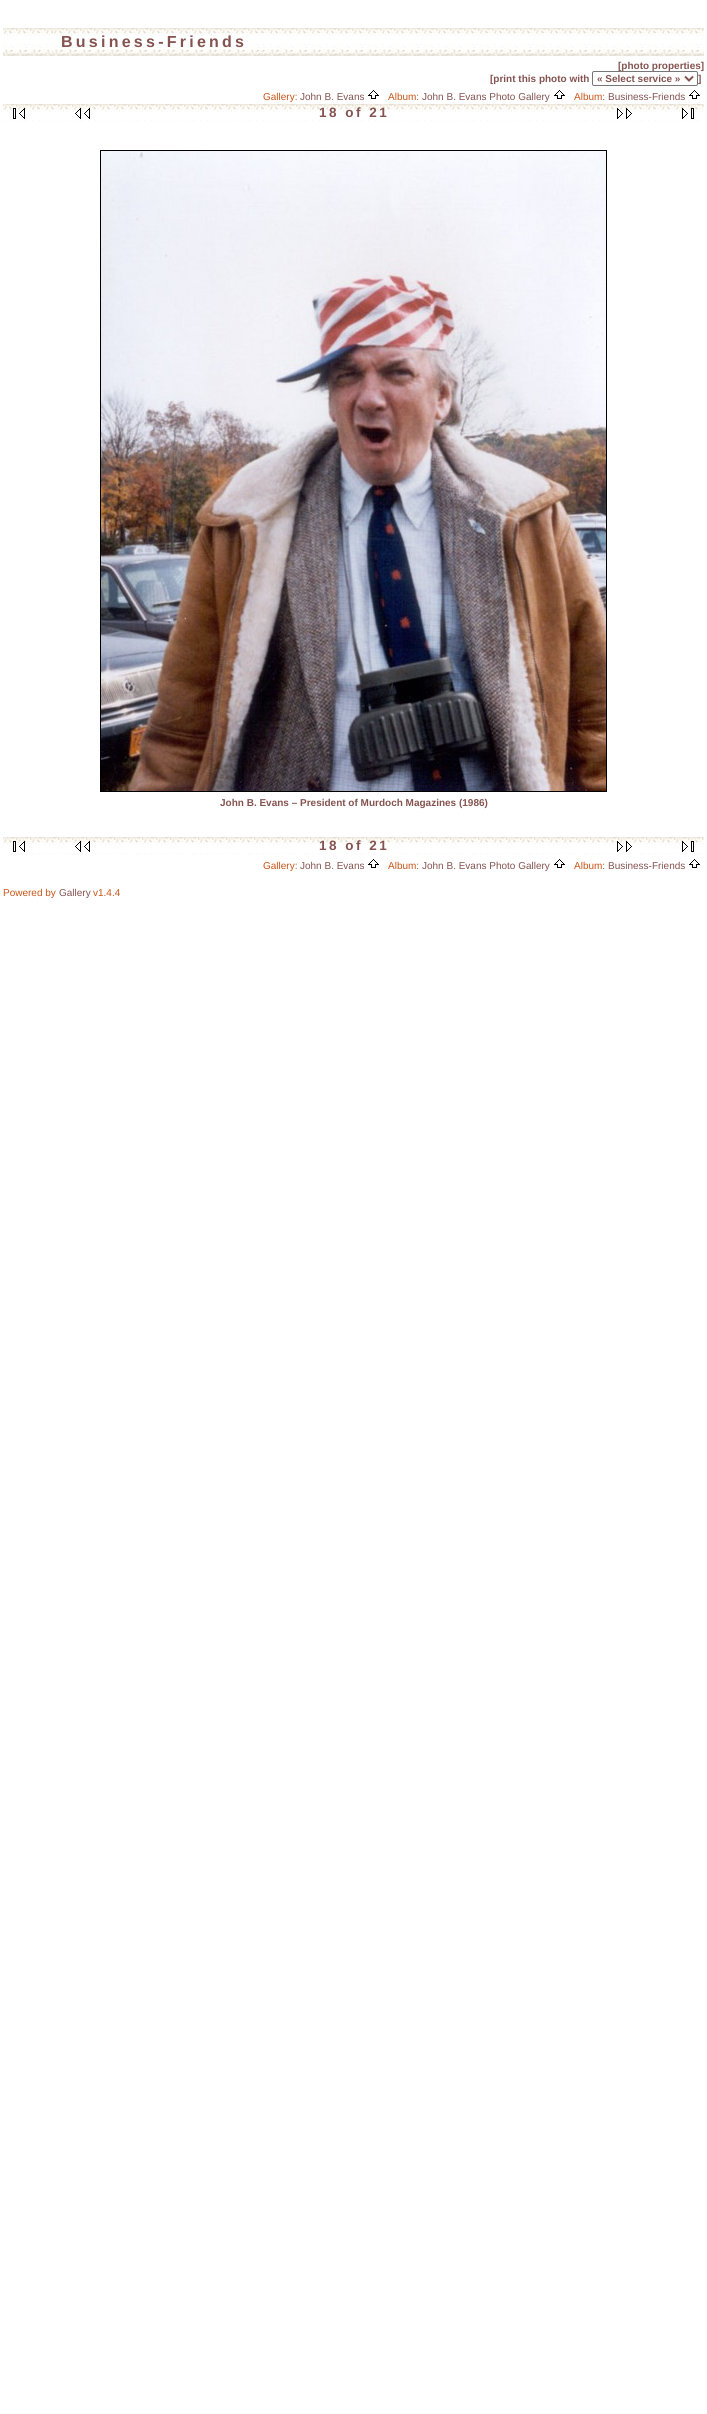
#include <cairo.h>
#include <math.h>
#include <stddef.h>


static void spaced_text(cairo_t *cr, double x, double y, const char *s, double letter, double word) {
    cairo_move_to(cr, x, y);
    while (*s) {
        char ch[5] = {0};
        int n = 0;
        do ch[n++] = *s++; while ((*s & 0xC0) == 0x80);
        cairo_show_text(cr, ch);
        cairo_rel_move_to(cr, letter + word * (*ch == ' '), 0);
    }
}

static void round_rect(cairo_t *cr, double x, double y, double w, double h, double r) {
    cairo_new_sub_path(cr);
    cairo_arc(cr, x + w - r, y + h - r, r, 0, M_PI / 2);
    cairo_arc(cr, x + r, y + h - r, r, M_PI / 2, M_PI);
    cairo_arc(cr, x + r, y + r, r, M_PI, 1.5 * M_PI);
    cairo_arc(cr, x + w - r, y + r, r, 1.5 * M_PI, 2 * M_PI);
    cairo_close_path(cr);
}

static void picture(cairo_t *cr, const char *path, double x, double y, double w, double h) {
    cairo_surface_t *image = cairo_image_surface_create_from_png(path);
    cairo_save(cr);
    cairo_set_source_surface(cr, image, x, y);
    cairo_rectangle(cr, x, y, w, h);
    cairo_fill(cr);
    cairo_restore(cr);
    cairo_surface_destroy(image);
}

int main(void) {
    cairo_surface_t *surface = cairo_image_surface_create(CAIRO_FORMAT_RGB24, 707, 2414);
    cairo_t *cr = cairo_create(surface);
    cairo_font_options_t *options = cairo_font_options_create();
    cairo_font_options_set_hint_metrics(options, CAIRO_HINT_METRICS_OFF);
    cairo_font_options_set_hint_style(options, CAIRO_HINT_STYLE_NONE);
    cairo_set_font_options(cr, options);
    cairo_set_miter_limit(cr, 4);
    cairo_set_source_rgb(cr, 1, 1, 1);
    cairo_paint(cr);
    picture(cr, "img1.png", 3, 28, 701, 28);
    picture(cr, "img2.png", 53, 28, 208, 28);
    cairo_select_font_face(cr, "Liberation Sans", CAIRO_FONT_SLANT_NORMAL, CAIRO_FONT_WEIGHT_BOLD);
    cairo_set_font_size(cr, 16);
    cairo_set_source_rgb(cr, 0.518, 0.325, 0.314);
    spaced_text(cr, 61, 47, "Business-Friends", 3.25, 0);
    cairo_set_font_size(cr, 10);
    cairo_move_to(cr, 618, 69);
    cairo_show_text(cr, "[photo properties]");
    cairo_move_to(cr, 490, 82);
    cairo_show_text(cr, "[print this photo with");
    cairo_set_source_rgb(cr, 1, 1, 1);
    round_rect(cr, 592.5, 71.5, 105, 14, 1.5);
    cairo_fill_preserve(cr);
    cairo_set_source_rgb(cr, 0.463, 0.463, 0.463);
    cairo_set_line_width(cr, 1);
    cairo_stroke(cr);
    cairo_new_path(cr);
    cairo_move_to(cr, 685, 76.5);
    cairo_line_to(cr, 689, 80.5);
    cairo_line_to(cr, 693, 76.5);
    cairo_set_source_rgb(cr, 0.518, 0.325, 0.314);
    cairo_set_line_width(cr, 2);
    cairo_stroke(cr);
    cairo_move_to(cr, 597, 82);
    cairo_show_text(cr, "« Select service »");
    cairo_move_to(cr, 698, 82);
    cairo_show_text(cr, "]");
    cairo_select_font_face(cr, "Liberation Sans", CAIRO_FONT_SLANT_NORMAL, CAIRO_FONT_WEIGHT_NORMAL);
    cairo_set_source_rgb(cr, 0.78, 0.333, 0.09);
    cairo_move_to(cr, 263, 100);
    cairo_show_text(cr, "Gallery:");
    cairo_set_source_rgb(cr, 0.518, 0.325, 0.314);
    cairo_move_to(cr, 300, 100);
    cairo_show_text(cr, "John B. Evans");
    picture(cr, "img3.png", 368, 90, 11, 9);
    cairo_set_source_rgb(cr, 0.78, 0.333, 0.09);
    cairo_move_to(cr, 388, 100);
    cairo_show_text(cr, "Album:");
    cairo_set_source_rgb(cr, 0.518, 0.325, 0.314);
    cairo_move_to(cr, 422, 100);
    cairo_show_text(cr, "John B. Evans Photo Gallery");
    picture(cr, "img3.png", 554, 90, 11, 9);
    cairo_set_source_rgb(cr, 0.78, 0.333, 0.09);
    cairo_move_to(cr, 574, 100);
    cairo_show_text(cr, "Album:");
    cairo_set_source_rgb(cr, 0.518, 0.325, 0.314);
    cairo_move_to(cr, 608, 100);
    cairo_show_text(cr, "Business-Friends");
    picture(cr, "img3.png", 689, 90, 11, 9);
    picture(cr, "img4.png", 3, 104, 701, 18);
    picture(cr, "img5.png", 13, 108, 12, 11);
    picture(cr, "img6.png", 75, 108, 15, 11);
    cairo_select_font_face(cr, "Liberation Sans", CAIRO_FONT_SLANT_NORMAL, CAIRO_FONT_WEIGHT_BOLD);
    cairo_set_font_size(cr, 13.5);
    spaced_text(cr, 319, 117, "18 of 21", 2.5, 0);
    picture(cr, "img7.png", 617, 108, 15, 11);
    picture(cr, "img8.png", 682, 108, 12, 11);
    cairo_set_source_rgb(cr, 0, 0, 0);
    cairo_rectangle(cr, 100, 150, 507, 1);
    cairo_fill(cr);
    cairo_rectangle(cr, 100, 151, 1, 640);
    cairo_fill(cr);
    picture(cr, "img9.png", 101, 151, 505, 640);
    cairo_rectangle(cr, 606, 151, 1, 640);
    cairo_fill(cr);
    cairo_rectangle(cr, 100, 791, 507, 1);
    cairo_fill(cr);
    cairo_set_font_size(cr, 10);
    cairo_set_source_rgb(cr, 0.518, 0.325, 0.314);
    cairo_move_to(cr, 220, 806);
    cairo_show_text(cr, "John B. Evans – President of Murdoch Magazines (1986)");
    picture(cr, "img4.png", 3, 837, 701, 18);
    picture(cr, "img5.png", 13, 841, 12, 11);
    picture(cr, "img6.png", 75, 841, 15, 11);
    cairo_set_font_size(cr, 13.5);
    spaced_text(cr, 319, 850, "18 of 21", 2.5, 0);
    picture(cr, "img7.png", 617, 841, 15, 11);
    picture(cr, "img8.png", 682, 841, 12, 11);
    cairo_select_font_face(cr, "Liberation Sans", CAIRO_FONT_SLANT_NORMAL, CAIRO_FONT_WEIGHT_NORMAL);
    cairo_set_font_size(cr, 10);
    cairo_set_source_rgb(cr, 0.78, 0.333, 0.09);
    cairo_move_to(cr, 263, 869);
    cairo_show_text(cr, "Gallery:");
    cairo_set_source_rgb(cr, 0.518, 0.325, 0.314);
    cairo_move_to(cr, 300, 869);
    cairo_show_text(cr, "John B. Evans");
    picture(cr, "img3.png", 368, 859, 11, 9);
    cairo_set_source_rgb(cr, 0.78, 0.333, 0.09);
    cairo_move_to(cr, 388, 869);
    cairo_show_text(cr, "Album:");
    cairo_set_source_rgb(cr, 0.518, 0.325, 0.314);
    cairo_move_to(cr, 422, 869);
    cairo_show_text(cr, "John B. Evans Photo Gallery");
    picture(cr, "img3.png", 554, 859, 11, 9);
    cairo_set_source_rgb(cr, 0.78, 0.333, 0.09);
    cairo_move_to(cr, 574, 869);
    cairo_show_text(cr, "Album:");
    cairo_set_source_rgb(cr, 0.518, 0.325, 0.314);
    cairo_move_to(cr, 608, 869);
    cairo_show_text(cr, "Business-Friends");
    picture(cr, "img3.png", 689, 859, 11, 9);
    cairo_set_source_rgb(cr, 0.78, 0.333, 0.09);
    cairo_move_to(cr, 3, 896);
    cairo_show_text(cr, "Powered by");
    cairo_set_source_rgb(cr, 0.518, 0.325, 0.314);
    cairo_move_to(cr, 59, 896);
    cairo_show_text(cr, "Gallery");
    cairo_set_source_rgb(cr, 0.78, 0.333, 0.09);
    cairo_move_to(cr, 93, 896);
    cairo_show_text(cr, "v1.4.4");
    cairo_surface_write_to_png(surface, "page.png");
    cairo_font_options_destroy(options);
    cairo_destroy(cr);
    cairo_surface_destroy(surface);
    return 0;
}
